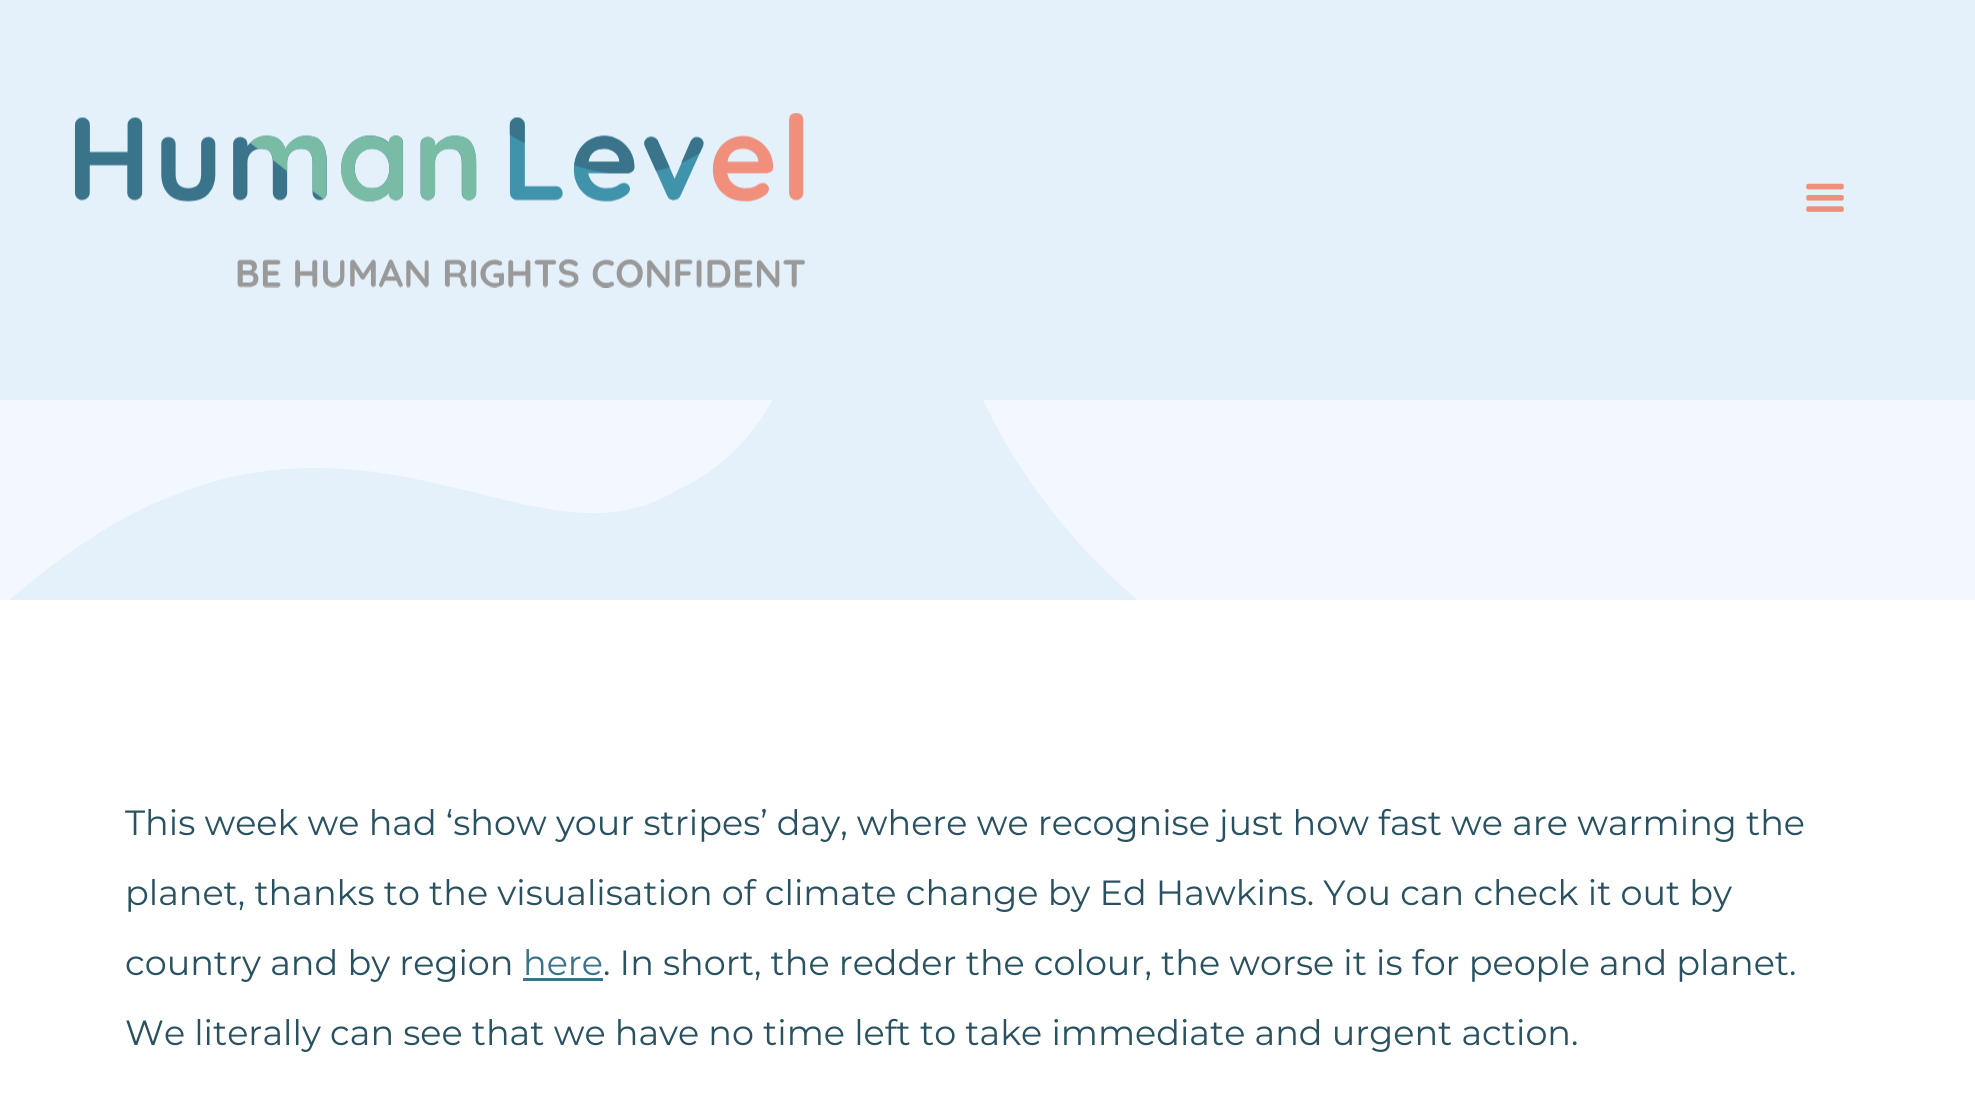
#include <cairo.h>
#include <math.h>
#include <stddef.h>


static void picture(cairo_t *cr, const char *path, double x, double y, double w, double h) {
    cairo_surface_t *image = cairo_image_surface_create_from_png(path);
    cairo_save(cr);
    cairo_set_source_surface(cr, image, x, y);
    cairo_rectangle(cr, x, y, w, h);
    cairo_fill(cr);
    cairo_restore(cr);
    cairo_surface_destroy(image);
}

int main(void) {
    cairo_surface_t *surface = cairo_image_surface_create(CAIRO_FORMAT_RGB24, 1975, 1119);
    cairo_t *cr = cairo_create(surface);
    cairo_font_options_t *options = cairo_font_options_create();
    cairo_font_options_set_hint_metrics(options, CAIRO_HINT_METRICS_OFF);
    cairo_font_options_set_hint_style(options, CAIRO_HINT_STYLE_NONE);
    cairo_set_font_options(cr, options);
    cairo_set_miter_limit(cr, 4);
    cairo_set_source_rgb(cr, 1, 1, 1);
    cairo_paint(cr);
    cairo_set_source_rgb(cr, 0.894, 0.941, 0.98);
    cairo_rectangle(cr, 0, 0, 1975, 600);
    cairo_fill(cr);
    picture(cr, "img1.png", 0, 400, 1975, 200);
    picture(cr, "img2.png", 75, 113, 730, 175);
    picture(cr, "img3.png", 1806, 183, 38, 29);
    cairo_select_font_face(cr, "Montserrat", CAIRO_FONT_SLANT_NORMAL, CAIRO_FONT_WEIGHT_NORMAL);
    cairo_set_font_size(cr, 35);
    cairo_set_source_rgb(cr, 0.157, 0.318, 0.38);
    cairo_move_to(cr, 125, 835);
    cairo_show_text(cr, "This week we had ‘show your stripes’ day, where we recognise just how fast we are warming the");
    cairo_move_to(cr, 125, 905);
    cairo_show_text(cr, "planet, thanks to the visualisation of climate change by Ed Hawkins. You can check it out by");
    cairo_move_to(cr, 125, 975);
    cairo_show_text(cr, "country and by region");
    cairo_set_source_rgb(cr, 0.224, 0.455, 0.545);
    cairo_move_to(cr, 523, 975);
    cairo_show_text(cr, "here");
    cairo_rectangle(cr, 523, 978, 80, 3);
    cairo_fill(cr);
    cairo_set_source_rgb(cr, 0.157, 0.318, 0.38);
    cairo_move_to(cr, 603, 975);
    cairo_show_text(cr, ". In short, the redder the colour, the worse it is for people and planet.");
    cairo_move_to(cr, 125, 1045);
    cairo_show_text(cr, "We literally can see that we have no time left to take immediate and urgent action.");
    cairo_surface_write_to_png(surface, "page.png");
    cairo_font_options_destroy(options);
    cairo_destroy(cr);
    cairo_surface_destroy(surface);
    return 0;
}
